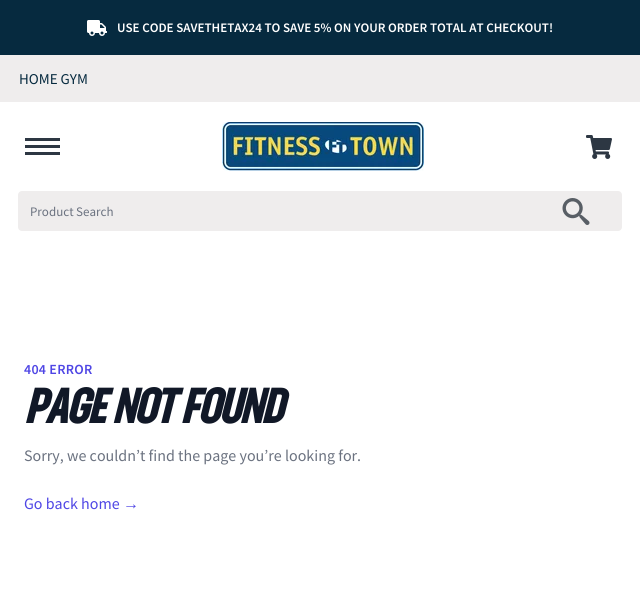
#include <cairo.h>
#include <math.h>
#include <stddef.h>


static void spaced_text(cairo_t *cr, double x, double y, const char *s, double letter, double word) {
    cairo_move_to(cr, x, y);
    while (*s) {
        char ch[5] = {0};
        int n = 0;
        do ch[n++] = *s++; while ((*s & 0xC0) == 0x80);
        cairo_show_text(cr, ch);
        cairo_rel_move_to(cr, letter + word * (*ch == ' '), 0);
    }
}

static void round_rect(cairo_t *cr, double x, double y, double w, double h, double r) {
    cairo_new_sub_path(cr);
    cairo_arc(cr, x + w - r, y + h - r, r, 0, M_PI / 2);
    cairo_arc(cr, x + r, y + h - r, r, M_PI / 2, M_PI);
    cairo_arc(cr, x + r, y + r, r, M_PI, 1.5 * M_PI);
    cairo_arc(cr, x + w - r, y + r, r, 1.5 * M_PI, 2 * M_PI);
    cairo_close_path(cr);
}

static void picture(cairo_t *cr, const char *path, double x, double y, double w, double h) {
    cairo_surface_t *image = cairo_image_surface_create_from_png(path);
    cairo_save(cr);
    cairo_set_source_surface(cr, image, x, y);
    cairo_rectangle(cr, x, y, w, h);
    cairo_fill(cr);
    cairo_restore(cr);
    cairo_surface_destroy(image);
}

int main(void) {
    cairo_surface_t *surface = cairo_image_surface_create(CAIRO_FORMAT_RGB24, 640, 589);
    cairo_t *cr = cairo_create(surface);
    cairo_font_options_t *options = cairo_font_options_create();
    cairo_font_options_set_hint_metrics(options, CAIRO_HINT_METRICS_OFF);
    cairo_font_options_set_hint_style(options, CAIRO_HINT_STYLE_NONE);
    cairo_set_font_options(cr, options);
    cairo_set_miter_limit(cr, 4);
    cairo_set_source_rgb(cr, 1, 1, 1);
    cairo_paint(cr);
    cairo_set_source_rgb(cr, 0.027, 0.165, 0.247);
    cairo_rectangle(cr, 0, 0, 640, 55);
    cairo_fill(cr);
    picture(cr, "img1.png", 87, 20, 20, 16);
    cairo_select_font_face(cr, "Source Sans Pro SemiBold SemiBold", CAIRO_FONT_SLANT_NORMAL, CAIRO_FONT_WEIGHT_NORMAL);
    cairo_set_font_size(cr, 13);
    cairo_set_source_rgb(cr, 1, 1, 1);
    cairo_move_to(cr, 117, 32);
    cairo_show_text(cr, "USE CODE SAVETHETAX24 TO SAVE 5% ON YOUR ORDER TOTAL AT CHECKOUT!");
    cairo_set_source_rgb(cr, 0.937, 0.929, 0.929);
    cairo_rectangle(cr, 0, 55, 640, 47);
    cairo_fill(cr);
    cairo_select_font_face(cr, "Source Sans Pro", CAIRO_FONT_SLANT_NORMAL, CAIRO_FONT_WEIGHT_NORMAL);
    cairo_set_font_size(cr, 15);
    cairo_set_source_rgb(cr, 0.027, 0.165, 0.247);
    cairo_move_to(cr, 19, 84);
    cairo_show_text(cr, "HOME GYM");
    cairo_set_source_rgb(cr, 0.176, 0.216, 0.263);
    cairo_rectangle(cr, 25, 138, 35, 3);
    cairo_fill(cr);
    cairo_rectangle(cr, 25, 145, 35, 3);
    cairo_fill(cr);
    cairo_rectangle(cr, 25, 152, 35, 3);
    cairo_fill(cr);
    picture(cr, "img2.png", 222, 122, 202, 49);
    picture(cr, "img3.png", 586, 135, 26, 24);
    cairo_set_source_rgb(cr, 0.937, 0.929, 0.929);
    round_rect(cr, 18, 191, 604, 40, 4);
    cairo_fill(cr);
    cairo_set_font_size(cr, 13);
    cairo_set_source_rgb(cr, 0.42, 0.447, 0.502);
    cairo_move_to(cr, 30, 216);
    cairo_show_text(cr, "Product Search");
    picture(cr, "img4.png", 562, 198, 28, 27);
    cairo_select_font_face(cr, "Source Sans Pro SemiBold SemiBold", CAIRO_FONT_SLANT_NORMAL, CAIRO_FONT_WEIGHT_NORMAL);
    cairo_set_font_size(cr, 14);
    cairo_set_source_rgb(cr, 0.31, 0.275, 0.898);
    spaced_text(cr, 24, 374, "404 ERROR", 0.25, 0);
    cairo_select_font_face(cr, "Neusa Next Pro", CAIRO_FONT_SLANT_ITALIC, CAIRO_FONT_WEIGHT_BOLD);
    cairo_set_font_size(cr, 48);
    cairo_set_source_rgb(cr, 0.067, 0.094, 0.153);
    spaced_text(cr, 24, 423, "PAGE NOT FOUND", -1.25, 0);
    cairo_select_font_face(cr, "Source Sans Pro", CAIRO_FONT_SLANT_NORMAL, CAIRO_FONT_WEIGHT_NORMAL);
    cairo_set_font_size(cr, 16);
    cairo_set_source_rgb(cr, 0.42, 0.447, 0.502);
    cairo_move_to(cr, 24, 461);
    cairo_show_text(cr, "Sorry, we couldn’t find the page you’re looking for.");
    cairo_set_source_rgb(cr, 0.31, 0.275, 0.898);
    cairo_move_to(cr, 24, 509);
    cairo_show_text(cr, "Go back home");
    cairo_select_font_face(cr, "Liberation Sans", CAIRO_FONT_SLANT_NORMAL, CAIRO_FONT_WEIGHT_NORMAL);
    cairo_move_to(cr, 123, 509);
    cairo_show_text(cr, "→");
    cairo_surface_write_to_png(surface, "page.png");
    cairo_font_options_destroy(options);
    cairo_destroy(cr);
    cairo_surface_destroy(surface);
    return 0;
}
